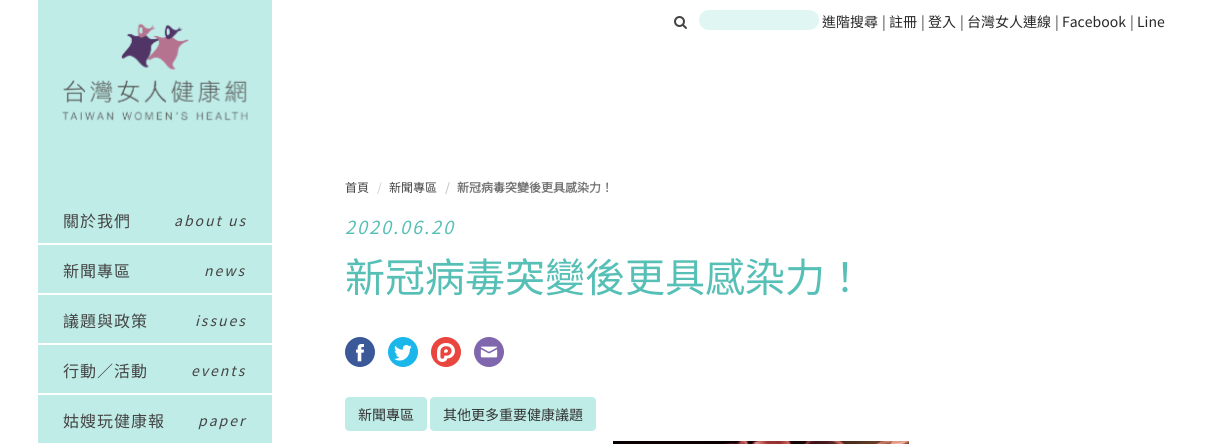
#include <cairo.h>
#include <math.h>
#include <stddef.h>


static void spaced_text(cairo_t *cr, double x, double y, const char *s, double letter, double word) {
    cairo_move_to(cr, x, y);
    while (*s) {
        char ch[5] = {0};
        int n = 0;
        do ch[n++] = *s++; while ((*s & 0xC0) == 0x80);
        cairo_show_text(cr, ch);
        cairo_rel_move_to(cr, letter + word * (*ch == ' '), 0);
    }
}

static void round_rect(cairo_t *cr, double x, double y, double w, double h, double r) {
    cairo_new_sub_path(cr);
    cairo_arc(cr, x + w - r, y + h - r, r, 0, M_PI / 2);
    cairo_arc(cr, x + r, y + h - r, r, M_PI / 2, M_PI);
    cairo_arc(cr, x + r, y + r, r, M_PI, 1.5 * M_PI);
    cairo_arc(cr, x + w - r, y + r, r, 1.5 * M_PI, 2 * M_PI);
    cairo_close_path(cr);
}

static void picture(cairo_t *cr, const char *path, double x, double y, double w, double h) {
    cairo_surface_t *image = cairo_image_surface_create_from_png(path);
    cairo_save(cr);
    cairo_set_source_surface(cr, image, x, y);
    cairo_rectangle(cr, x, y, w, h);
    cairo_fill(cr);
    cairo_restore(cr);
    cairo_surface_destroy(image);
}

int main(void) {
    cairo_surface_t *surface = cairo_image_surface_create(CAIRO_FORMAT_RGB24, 1215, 444);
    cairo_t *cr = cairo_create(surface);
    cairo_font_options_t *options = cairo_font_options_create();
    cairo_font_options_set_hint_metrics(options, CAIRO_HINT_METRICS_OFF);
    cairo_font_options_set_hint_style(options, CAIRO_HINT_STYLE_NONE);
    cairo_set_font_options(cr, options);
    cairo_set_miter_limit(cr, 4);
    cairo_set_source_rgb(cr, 1, 1, 1);
    cairo_paint(cr);
    picture(cr, "img1.png", 674, 16, 13, 13);
    cairo_set_source_rgb(cr, 0.875, 0.961, 0.953);
    round_rect(cr, 699, 10, 120, 20, 10);
    cairo_fill(cr);
    cairo_select_font_face(cr, "Noto Sans TC Thin", CAIRO_FONT_SLANT_NORMAL, CAIRO_FONT_WEIGHT_NORMAL);
    cairo_set_font_size(cr, 14);
    cairo_set_source_rgb(cr, 0.157, 0.157, 0.157);
    cairo_move_to(cr, 822, 27);
    cairo_show_text(cr, "進階搜尋");
    cairo_set_source_rgb(cr, 0.267, 0.267, 0.267);
    cairo_move_to(cr, 882, 27);
    cairo_show_text(cr, "|");
    cairo_set_source_rgb(cr, 0.157, 0.157, 0.157);
    cairo_move_to(cr, 889, 27);
    cairo_show_text(cr, "註冊");
    cairo_set_source_rgb(cr, 0.267, 0.267, 0.267);
    cairo_move_to(cr, 921, 27);
    cairo_show_text(cr, "|");
    cairo_set_source_rgb(cr, 0.157, 0.157, 0.157);
    cairo_move_to(cr, 928, 27);
    cairo_show_text(cr, "登入");
    cairo_set_source_rgb(cr, 0.267, 0.267, 0.267);
    cairo_move_to(cr, 960, 27);
    cairo_show_text(cr, "|");
    cairo_set_source_rgb(cr, 0.157, 0.157, 0.157);
    cairo_move_to(cr, 967, 27);
    cairo_show_text(cr, "台灣女人連線");
    cairo_set_source_rgb(cr, 0.267, 0.267, 0.267);
    cairo_move_to(cr, 1055, 27);
    cairo_show_text(cr, "|");
    cairo_set_source_rgb(cr, 0.157, 0.157, 0.157);
    cairo_move_to(cr, 1062, 27);
    cairo_show_text(cr, "Facebook");
    cairo_set_source_rgb(cr, 0.267, 0.267, 0.267);
    cairo_move_to(cr, 1130, 27);
    cairo_show_text(cr, "|");
    cairo_set_source_rgb(cr, 0.157, 0.157, 0.157);
    cairo_move_to(cr, 1137, 27);
    cairo_show_text(cr, "Line");
    cairo_set_source_rgb(cr, 0.749, 0.922, 0.906);
    cairo_rectangle(cr, 38, 0, 234, 443);
    cairo_fill(cr);
    picture(cr, "img2.png", 62, 23, 186, 98);
    cairo_set_source_rgb(cr, 1, 1, 1);
    cairo_rectangle(cr, 38, 243, 234, 2);
    cairo_fill(cr);
    cairo_set_font_size(cr, 16);
    cairo_set_source_rgb(cr, 0.267, 0.267, 0.267);
    spaced_text(cr, 63, 227, "關於我們", 1, 0);
    cairo_select_font_face(cr, "Noto Sans TC Thin", CAIRO_FONT_SLANT_ITALIC, CAIRO_FONT_WEIGHT_NORMAL);
    cairo_set_font_size(cr, 14);
    spaced_text(cr, 174, 226, "about us", 2, 0);
    cairo_set_source_rgb(cr, 1, 1, 1);
    cairo_rectangle(cr, 38, 293, 234, 2);
    cairo_fill(cr);
    cairo_select_font_face(cr, "Noto Sans TC Thin", CAIRO_FONT_SLANT_NORMAL, CAIRO_FONT_WEIGHT_NORMAL);
    cairo_set_font_size(cr, 16);
    cairo_set_source_rgb(cr, 0.267, 0.267, 0.267);
    spaced_text(cr, 63, 277, "新聞專區", 1, 0);
    cairo_select_font_face(cr, "Noto Sans TC Thin", CAIRO_FONT_SLANT_ITALIC, CAIRO_FONT_WEIGHT_NORMAL);
    cairo_set_font_size(cr, 14);
    spaced_text(cr, 204, 276, "news", 2, 0);
    cairo_set_source_rgb(cr, 1, 1, 1);
    cairo_rectangle(cr, 38, 343, 234, 2);
    cairo_fill(cr);
    cairo_select_font_face(cr, "Noto Sans TC Thin", CAIRO_FONT_SLANT_NORMAL, CAIRO_FONT_WEIGHT_NORMAL);
    cairo_set_font_size(cr, 16);
    cairo_set_source_rgb(cr, 0.267, 0.267, 0.267);
    spaced_text(cr, 63, 327, "議題與政策", 1, 0);
    cairo_select_font_face(cr, "Noto Sans TC Thin", CAIRO_FONT_SLANT_ITALIC, CAIRO_FONT_WEIGHT_NORMAL);
    cairo_set_font_size(cr, 14);
    spaced_text(cr, 195, 326, "issues", 2, 0);
    cairo_set_source_rgb(cr, 1, 1, 1);
    cairo_rectangle(cr, 38, 393, 234, 2);
    cairo_fill(cr);
    cairo_select_font_face(cr, "Noto Sans TC Thin", CAIRO_FONT_SLANT_NORMAL, CAIRO_FONT_WEIGHT_NORMAL);
    cairo_set_font_size(cr, 16);
    cairo_set_source_rgb(cr, 0.267, 0.267, 0.267);
    spaced_text(cr, 63, 377, "行動／活動", 1, 0);
    cairo_select_font_face(cr, "Noto Sans TC Thin", CAIRO_FONT_SLANT_ITALIC, CAIRO_FONT_WEIGHT_NORMAL);
    cairo_set_font_size(cr, 14);
    spaced_text(cr, 191, 376, "events", 2, 0);
    cairo_select_font_face(cr, "Noto Sans TC Thin", CAIRO_FONT_SLANT_NORMAL, CAIRO_FONT_WEIGHT_NORMAL);
    cairo_set_font_size(cr, 16);
    spaced_text(cr, 63, 427, "姑嫂玩健康報", 1, 0);
    cairo_select_font_face(cr, "Noto Sans TC Thin", CAIRO_FONT_SLANT_ITALIC, CAIRO_FONT_WEIGHT_NORMAL);
    cairo_set_font_size(cr, 14);
    spaced_text(cr, 198, 426, "paper", 2, 0);
    cairo_select_font_face(cr, "Noto Sans TC Thin", CAIRO_FONT_SLANT_NORMAL, CAIRO_FONT_WEIGHT_NORMAL);
    cairo_set_font_size(cr, 12);
    cairo_move_to(cr, 345, 192);
    cairo_show_text(cr, "首頁");
    cairo_set_source_rgb(cr, 0.8, 0.8, 0.8);
    cairo_move_to(cr, 377, 192);
    cairo_show_text(cr, "/");
    cairo_set_source_rgb(cr, 0.267, 0.267, 0.267);
    cairo_move_to(cr, 389, 192);
    cairo_show_text(cr, "新聞專區");
    cairo_select_font_face(cr, "Noto Sans TC", CAIRO_FONT_SLANT_NORMAL, CAIRO_FONT_WEIGHT_BOLD);
    cairo_set_source_rgb(cr, 0.8, 0.8, 0.8);
    cairo_move_to(cr, 445, 192);
    cairo_show_text(cr, "/");
    cairo_set_source_rgb(cr, 0.467, 0.467, 0.467);
    cairo_move_to(cr, 457, 192);
    cairo_show_text(cr, "新冠病毒突變後更具感染力！");
    cairo_select_font_face(cr, "Noto Sans TC Thin", CAIRO_FONT_SLANT_ITALIC, CAIRO_FONT_WEIGHT_NORMAL);
    cairo_set_font_size(cr, 18);
    cairo_set_source_rgb(cr, 0.337, 0.749, 0.714);
    spaced_text(cr, 345, 234, "2020.06.20", 2, 0);
    cairo_select_font_face(cr, "Noto Sans TC Thin", CAIRO_FONT_SLANT_NORMAL, CAIRO_FONT_WEIGHT_NORMAL);
    cairo_set_font_size(cr, 40);
    cairo_move_to(cr, 345, 292);
    cairo_show_text(cr, "新冠病毒突變後更具感染力！");
    picture(cr, "img3.png", 345, 337, 30, 30);
    picture(cr, "img4.png", 388, 337, 30, 30);
    picture(cr, "img5.png", 431, 337, 30, 30);
    picture(cr, "img6.png", 474, 337, 30, 30);
    cairo_set_source_rgb(cr, 0.749, 0.922, 0.906);
    round_rect(cr, 345, 397, 82, 34, 4);
    cairo_fill(cr);
    cairo_set_font_size(cr, 14);
    cairo_set_source_rgb(cr, 0.2, 0.2, 0.2);
    cairo_move_to(cr, 358, 420);
    cairo_show_text(cr, "新聞專區");
    cairo_set_source_rgb(cr, 0.749, 0.922, 0.906);
    round_rect(cr, 430, 397, 166, 34, 4);
    cairo_fill(cr);
    cairo_set_source_rgb(cr, 0.2, 0.2, 0.2);
    cairo_move_to(cr, 443, 420);
    cairo_show_text(cr, "其他更多重要健康議題");
    picture(cr, "img7.png", 613, 441, 296, 3);
    cairo_surface_write_to_png(surface, "page.png");
    cairo_font_options_destroy(options);
    cairo_destroy(cr);
    cairo_surface_destroy(surface);
    return 0;
}
